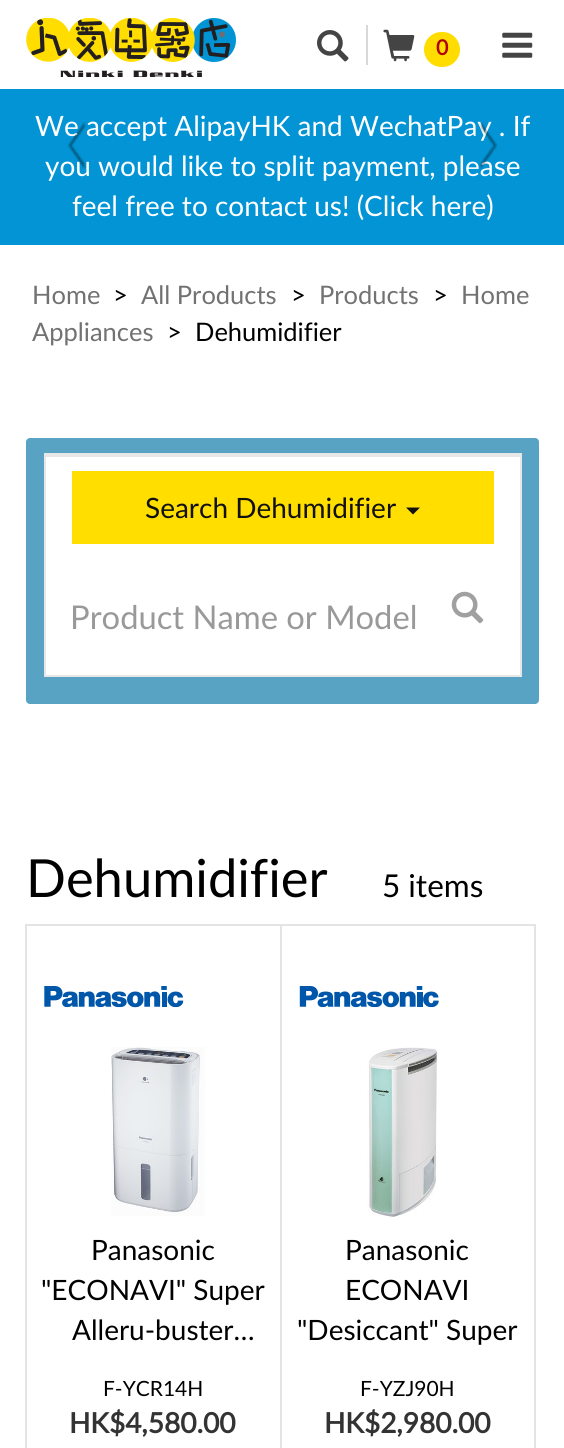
#include <cairo.h>
#include <math.h>
#include <stddef.h>


static void round_rect(cairo_t *cr, double x, double y, double w, double h, double r) {
    cairo_new_sub_path(cr);
    cairo_arc(cr, x + w - r, y + h - r, r, 0, M_PI / 2);
    cairo_arc(cr, x + r, y + h - r, r, M_PI / 2, M_PI);
    cairo_arc(cr, x + r, y + r, r, M_PI, 1.5 * M_PI);
    cairo_arc(cr, x + w - r, y + r, r, 1.5 * M_PI, 2 * M_PI);
    cairo_close_path(cr);
}

static void picture(cairo_t *cr, const char *path, double x, double y, double w, double h) {
    cairo_surface_t *image = cairo_image_surface_create_from_png(path);
    cairo_save(cr);
    cairo_set_source_surface(cr, image, x, y);
    cairo_rectangle(cr, x, y, w, h);
    cairo_fill(cr);
    cairo_restore(cr);
    cairo_surface_destroy(image);
}

int main(void) {
    cairo_surface_t *surface = cairo_image_surface_create(CAIRO_FORMAT_RGB24, 564, 1448);
    cairo_t *cr = cairo_create(surface);
    cairo_font_options_t *options = cairo_font_options_create();
    cairo_font_options_set_hint_metrics(options, CAIRO_HINT_METRICS_OFF);
    cairo_font_options_set_hint_style(options, CAIRO_HINT_STYLE_NONE);
    cairo_set_font_options(cr, options);
    cairo_set_miter_limit(cr, 4);
    cairo_set_source_rgb(cr, 1, 1, 1);
    cairo_paint(cr);
    picture(cr, "img1.png", 26, 18, 210, 59);
    picture(cr, "img2.png", 317, 30, 32, 32);
    cairo_set_source_rgb(cr, 0.847, 0.847, 0.847);
    cairo_rectangle(cr, 366, 25, 2, 40);
    cairo_fill(cr);
    picture(cr, "img3.png", 383, 29, 32, 33);
    cairo_set_source_rgb(cr, 1, 0.867, 0.004);
    round_rect(cr, 424, 32, 36, 35, 17.5);
    cairo_fill(cr);
    cairo_select_font_face(cr, "lato", CAIRO_FONT_SLANT_NORMAL, CAIRO_FONT_WEIGHT_BOLD);
    cairo_set_font_size(cr, 21);
    cairo_set_source_rgb(cr, 0.694, 0.004, 0.004);
    cairo_move_to(cr, 436, 55);
    cairo_show_text(cr, "0");
    picture(cr, "img4.png", 502, 32, 31, 26);
    cairo_set_source_rgb(cr, 0.008, 0.58, 0.835);
    cairo_rectangle(cr, 0, 89, 564, 156);
    cairo_fill(cr);
    cairo_select_font_face(cr, "lato", CAIRO_FONT_SLANT_NORMAL, CAIRO_FONT_WEIGHT_NORMAL);
    cairo_set_font_size(cr, 28);
    cairo_set_source_rgb(cr, 1, 1, 1);
    cairo_move_to(cr, 35, 136);
    cairo_show_text(cr, "We accept AlipayHK and WechatPay . If");
    cairo_move_to(cr, 45, 176);
    cairo_show_text(cr, "you would like to split payment, please");
    cairo_move_to(cr, 72, 216);
    cairo_show_text(cr, "feel free to contact us! (Click here)");
    picture(cr, "img5.png", 68, 122, 18, 47);
    picture(cr, "img6.png", 479, 122, 19, 47);
    cairo_set_font_size(cr, 25.5);
    cairo_set_source_rgb(cr, 0.447, 0.447, 0.447);
    cairo_move_to(cr, 32, 304);
    cairo_show_text(cr, "Home");
    cairo_set_source_rgb(cr, 0, 0, 0);
    cairo_move_to(cr, 113, 304);
    cairo_show_text(cr, ">");
    cairo_set_source_rgb(cr, 0.447, 0.447, 0.447);
    cairo_move_to(cr, 141, 304);
    cairo_show_text(cr, "All Products");
    cairo_set_source_rgb(cr, 0, 0, 0);
    cairo_move_to(cr, 291, 304);
    cairo_show_text(cr, ">");
    cairo_set_source_rgb(cr, 0.447, 0.447, 0.447);
    cairo_move_to(cr, 319, 304);
    cairo_show_text(cr, "Products");
    cairo_set_source_rgb(cr, 0, 0, 0);
    cairo_move_to(cr, 433, 304);
    cairo_show_text(cr, ">");
    cairo_set_source_rgb(cr, 0.447, 0.447, 0.447);
    cairo_move_to(cr, 461, 304);
    cairo_show_text(cr, "Home");
    cairo_move_to(cr, 32, 341);
    cairo_show_text(cr, "Appliances");
    cairo_set_source_rgb(cr, 0, 0, 0);
    cairo_move_to(cr, 167, 341);
    cairo_show_text(cr, ">");
    cairo_move_to(cr, 195, 341);
    cairo_show_text(cr, "Dehumidifier");
    cairo_set_source_rgb(cr, 0.345, 0.639, 0.769);
    round_rect(cr, 26, 438, 513, 266, 4);
    cairo_fill(cr);
    cairo_set_source_rgb(cr, 1, 1, 1);
    cairo_rectangle(cr, 46, 457, 474, 218);
    cairo_fill(cr);
    cairo_rectangle(cr, 45, 454, 476, 222);
    cairo_set_source_rgb(cr, 0.906, 0.906, 0.906);
    cairo_stroke(cr);
    cairo_rectangle(cr, 46, 455, 474, 2);
    cairo_fill(cr);
    cairo_set_source_rgb(cr, 1, 0.871, 0);
    cairo_rectangle(cr, 72, 471, 422, 73);
    cairo_fill(cr);
    cairo_set_font_size(cr, 28);
    cairo_set_source_rgb(cr, 0.067, 0.067, 0.067);
    cairo_move_to(cr, 145, 518);
    cairo_show_text(cr, "Search Dehumidifier");
    cairo_new_path(cr);
    cairo_move_to(cr, 406, 507.5);
    cairo_line_to(cr, 420, 507.5);
    cairo_line_to(cr, 413, 514.5);
    cairo_close_path(cr);
    cairo_fill(cr);
    cairo_set_font_size(cr, 32.75);
    cairo_set_source_rgb(cr, 0.6, 0.6, 0.6);
    cairo_move_to(cr, 70, 629);
    cairo_show_text(cr, "Product Name or Model");
    picture(cr, "img7.png", 451, 591, 33, 33);
    cairo_set_font_size(cr, 52.5);
    cairo_set_source_rgb(cr, 0, 0, 0);
    cairo_move_to(cr, 26, 897);
    cairo_show_text(cr, "Dehumidifier");
    cairo_set_font_size(cr, 31.5);
    cairo_move_to(cr, 382, 897);
    cairo_show_text(cr, "5 items");
    cairo_rectangle(cr, 26, 925, 255, 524);
    cairo_set_source_rgb(cr, 0.894, 0.894, 0.894);
    cairo_stroke(cr);
    picture(cr, "img8.png", 44, 986, 140, 22);
    picture(cr, "img9.png", 111, 1047, 94, 169);
    cairo_set_font_size(cr, 28);
    cairo_set_source_rgb(cr, 0, 0, 0);
    cairo_move_to(cr, 91, 1260);
    cairo_show_text(cr, "Panasonic");
    cairo_move_to(cr, 41, 1300);
    cairo_show_text(cr, "\"ECONAVI\" Super");
    cairo_move_to(cr, 72, 1340);
    cairo_show_text(cr, "Alleru-buster…");
    cairo_set_font_size(cr, 21);
    cairo_move_to(cr, 103, 1396);
    cairo_show_text(cr, "F-YCR14H");
    cairo_select_font_face(cr, "lato", CAIRO_FONT_SLANT_NORMAL, CAIRO_FONT_WEIGHT_BOLD);
    cairo_set_font_size(cr, 28);
    cairo_set_source_rgb(cr, 0.2, 0.2, 0.2);
    cairo_move_to(cr, 69, 1433);
    cairo_show_text(cr, "HK$4,580.00");
    cairo_rectangle(cr, 281, 925, 254, 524);
    cairo_set_source_rgb(cr, 0.894, 0.894, 0.894);
    cairo_stroke(cr);
    picture(cr, "img10.png", 299, 986, 140, 22);
    picture(cr, "img11.png", 367, 1047, 71, 170);
    cairo_select_font_face(cr, "lato", CAIRO_FONT_SLANT_NORMAL, CAIRO_FONT_WEIGHT_NORMAL);
    cairo_set_source_rgb(cr, 0, 0, 0);
    cairo_move_to(cr, 345, 1260);
    cairo_show_text(cr, "Panasonic");
    cairo_move_to(cr, 345, 1300);
    cairo_show_text(cr, "ECONAVI");
    cairo_move_to(cr, 297, 1340);
    cairo_show_text(cr, "\"Desiccant\" Super");
    cairo_set_font_size(cr, 21);
    cairo_move_to(cr, 360, 1396);
    cairo_show_text(cr, "F-YZJ90H");
    cairo_select_font_face(cr, "lato", CAIRO_FONT_SLANT_NORMAL, CAIRO_FONT_WEIGHT_BOLD);
    cairo_set_font_size(cr, 28);
    cairo_set_source_rgb(cr, 0.2, 0.2, 0.2);
    cairo_move_to(cr, 324, 1433);
    cairo_show_text(cr, "HK$2,980.00");
    cairo_surface_write_to_png(surface, "page.png");
    cairo_font_options_destroy(options);
    cairo_destroy(cr);
    cairo_surface_destroy(surface);
    return 0;
}
